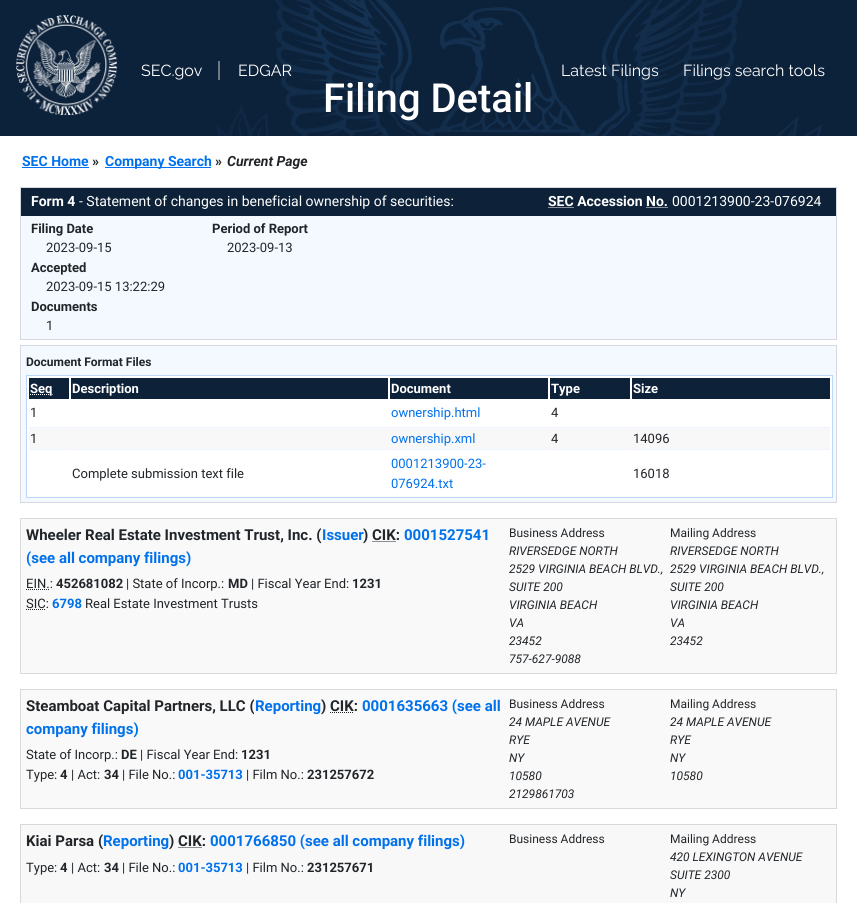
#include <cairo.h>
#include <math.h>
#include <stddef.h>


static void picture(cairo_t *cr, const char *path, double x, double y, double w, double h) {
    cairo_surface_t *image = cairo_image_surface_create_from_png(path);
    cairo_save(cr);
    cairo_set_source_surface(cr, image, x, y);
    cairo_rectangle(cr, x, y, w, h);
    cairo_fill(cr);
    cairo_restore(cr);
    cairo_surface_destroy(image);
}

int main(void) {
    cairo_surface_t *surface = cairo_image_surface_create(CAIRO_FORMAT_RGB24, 857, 903);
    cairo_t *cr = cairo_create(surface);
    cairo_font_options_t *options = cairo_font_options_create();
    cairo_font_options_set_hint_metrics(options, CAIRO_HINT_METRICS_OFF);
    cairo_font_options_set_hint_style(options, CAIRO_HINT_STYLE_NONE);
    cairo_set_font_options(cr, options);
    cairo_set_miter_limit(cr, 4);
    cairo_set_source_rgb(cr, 1, 1, 1);
    cairo_paint(cr);
    cairo_set_source_rgb(cr, 0.047, 0.129, 0.227);
    cairo_rectangle(cr, 0, 0, 857, 136);
    cairo_fill(cr);
    picture(cr, "img1.png", 217, 0, 605, 136);
    picture(cr, "img2.png", 16, 15, 101, 100);
    cairo_select_font_face(cr, "Raleway", CAIRO_FONT_SLANT_NORMAL, CAIRO_FONT_WEIGHT_NORMAL);
    cairo_set_font_size(cr, 16);
    cairo_set_source_rgb(cr, 1, 1, 1);
    cairo_move_to(cr, 141, 76);
    cairo_show_text(cr, "SEC.gov");
    cairo_set_source_rgb(cr, 0.439, 0.475, 0.51);
    cairo_rectangle(cr, 218, 61, 2, 19);
    cairo_fill(cr);
    cairo_set_source_rgb(cr, 1, 1, 1);
    cairo_move_to(cr, 238, 76);
    cairo_show_text(cr, "EDGAR");
    cairo_move_to(cr, 561, 76);
    cairo_show_text(cr, "Latest Filings");
    cairo_move_to(cr, 683, 76);
    cairo_show_text(cr, "Filings search tools");
    cairo_select_font_face(cr, "Roboto Medium", CAIRO_FONT_SLANT_NORMAL, CAIRO_FONT_WEIGHT_NORMAL);
    cairo_set_font_size(cr, 40);
    cairo_move_to(cr, 323, 112);
    cairo_show_text(cr, "Filing Detail");
    cairo_select_font_face(cr, "Roboto", CAIRO_FONT_SLANT_NORMAL, CAIRO_FONT_WEIGHT_BOLD);
    cairo_set_font_size(cr, 14);
    cairo_set_source_rgb(cr, 0, 0.443, 0.922);
    cairo_move_to(cr, 22, 166);
    cairo_show_text(cr, "SEC Home");
    cairo_rectangle(cr, 22, 167, 67, 1);
    cairo_fill(cr);
    cairo_set_source_rgb(cr, 0.129, 0.145, 0.161);
    cairo_move_to(cr, 92, 166);
    cairo_show_text(cr, "»");
    cairo_set_source_rgb(cr, 0, 0.443, 0.922);
    cairo_rectangle(cr, 105, 167, 106, 1);
    cairo_fill(cr);
    cairo_move_to(cr, 105, 166);
    cairo_show_text(cr, "Company Search");
    cairo_set_source_rgb(cr, 0.129, 0.145, 0.161);
    cairo_move_to(cr, 215, 166);
    cairo_show_text(cr, "»");
    cairo_select_font_face(cr, "Roboto", CAIRO_FONT_SLANT_ITALIC, CAIRO_FONT_WEIGHT_BOLD);
    cairo_move_to(cr, 227, 166);
    cairo_show_text(cr, "Current Page");
    cairo_set_source_rgb(cr, 0.953, 0.973, 1);
    cairo_rectangle(cr, 21, 216, 815, 123);
    cairo_fill(cr);
    cairo_rectangle(cr, 20.5, 187.5, 816, 152);
    cairo_set_source_rgb(cr, 0.835, 0.851, 0.875);
    cairo_set_line_width(cr, 1);
    cairo_stroke(cr);
    cairo_set_source_rgb(cr, 0.051, 0.133, 0.224);
    cairo_rectangle(cr, 21, 188, 815, 28);
    cairo_fill(cr);
    cairo_select_font_face(cr, "Roboto", CAIRO_FONT_SLANT_NORMAL, CAIRO_FONT_WEIGHT_BOLD);
    cairo_set_source_rgb(cr, 1, 1, 1);
    cairo_move_to(cr, 31, 206);
    cairo_show_text(cr, "Form 4");
    cairo_select_font_face(cr, "Roboto", CAIRO_FONT_SLANT_NORMAL, CAIRO_FONT_WEIGHT_NORMAL);
    cairo_move_to(cr, 79, 206);
    cairo_show_text(cr, "- Statement of changes in beneficial ownership of securities:");
    cairo_select_font_face(cr, "Roboto", CAIRO_FONT_SLANT_NORMAL, CAIRO_FONT_WEIGHT_BOLD);
    cairo_move_to(cr, 548, 206);
    cairo_show_text(cr, "SEC Accession No.");
    cairo_new_path(cr);
    cairo_move_to(cr, 548.5, 207.5);
    cairo_line_to(cr, 574, 207.5);
    cairo_set_dash(cr, (double[]){1, 1}, 2, 0);
    cairo_stroke(cr);
    cairo_new_path(cr);
    cairo_move_to(cr, 646.5, 207.5);
    cairo_line_to(cr, 668, 207.5);
    cairo_stroke(cr);
    cairo_select_font_face(cr, "Roboto", CAIRO_FONT_SLANT_NORMAL, CAIRO_FONT_WEIGHT_NORMAL);
    cairo_move_to(cr, 672, 206);
    cairo_show_text(cr, "0001213900-23-076924");
    cairo_select_font_face(cr, "Roboto", CAIRO_FONT_SLANT_NORMAL, CAIRO_FONT_WEIGHT_BOLD);
    cairo_set_font_size(cr, 13);
    cairo_set_source_rgb(cr, 0.129, 0.145, 0.161);
    cairo_move_to(cr, 31, 233);
    cairo_show_text(cr, "Filing Date");
    cairo_select_font_face(cr, "Roboto", CAIRO_FONT_SLANT_NORMAL, CAIRO_FONT_WEIGHT_NORMAL);
    cairo_move_to(cr, 46, 252);
    cairo_show_text(cr, "2023-09-15");
    cairo_select_font_face(cr, "Roboto", CAIRO_FONT_SLANT_NORMAL, CAIRO_FONT_WEIGHT_BOLD);
    cairo_move_to(cr, 31, 272);
    cairo_show_text(cr, "Accepted");
    cairo_select_font_face(cr, "Roboto", CAIRO_FONT_SLANT_NORMAL, CAIRO_FONT_WEIGHT_NORMAL);
    cairo_move_to(cr, 46, 291);
    cairo_show_text(cr, "2023-09-15 13:22:29");
    cairo_select_font_face(cr, "Roboto", CAIRO_FONT_SLANT_NORMAL, CAIRO_FONT_WEIGHT_BOLD);
    cairo_move_to(cr, 31, 311);
    cairo_show_text(cr, "Documents");
    cairo_select_font_face(cr, "Roboto", CAIRO_FONT_SLANT_NORMAL, CAIRO_FONT_WEIGHT_NORMAL);
    cairo_move_to(cr, 46, 330);
    cairo_show_text(cr, "1");
    cairo_select_font_face(cr, "Roboto", CAIRO_FONT_SLANT_NORMAL, CAIRO_FONT_WEIGHT_BOLD);
    cairo_move_to(cr, 212, 233);
    cairo_show_text(cr, "Period of Report");
    cairo_select_font_face(cr, "Roboto", CAIRO_FONT_SLANT_NORMAL, CAIRO_FONT_WEIGHT_NORMAL);
    cairo_move_to(cr, 227, 252);
    cairo_show_text(cr, "2023-09-13");
    cairo_set_source_rgb(cr, 0.953, 0.973, 1);
    cairo_rectangle(cr, 20.5, 345.5, 816, 157);
    cairo_fill_preserve(cr);
    cairo_set_source_rgb(cr, 0.835, 0.851, 0.875);
    cairo_set_dash(cr, NULL, 0, 0);
    cairo_stroke(cr);
    cairo_select_font_face(cr, "Roboto", CAIRO_FONT_SLANT_NORMAL, CAIRO_FONT_WEIGHT_BOLD);
    cairo_set_font_size(cr, 12);
    cairo_set_source_rgb(cr, 0.129, 0.145, 0.161);
    cairo_move_to(cr, 26, 366);
    cairo_show_text(cr, "Document Format Files");
    cairo_set_source_rgb(cr, 1, 1, 1);
    cairo_rectangle(cr, 26.5, 375.5, 806, 122);
    cairo_fill_preserve(cr);
    cairo_set_source_rgb(cr, 0.737, 0.839, 0.973);
    cairo_stroke(cr);
    cairo_set_source_rgb(cr, 0.051, 0.133, 0.224);
    cairo_rectangle(cr, 29, 378, 40, 21);
    cairo_fill(cr);
    cairo_new_path(cr);
    cairo_move_to(cr, 30, 394.5);
    cairo_line_to(cr, 52.5, 394.5);
    cairo_set_source_rgb(cr, 1, 1, 1);
    cairo_set_dash(cr, (double[]){1, 1}, 2, 0);
    cairo_stroke(cr);
    cairo_set_font_size(cr, 13);
    cairo_move_to(cr, 30, 393);
    cairo_show_text(cr, "Seq");
    cairo_set_source_rgb(cr, 0.051, 0.133, 0.224);
    cairo_rectangle(cr, 71, 378, 317, 21);
    cairo_fill(cr);
    cairo_set_source_rgb(cr, 1, 1, 1);
    cairo_move_to(cr, 72, 393);
    cairo_show_text(cr, "Description");
    cairo_set_source_rgb(cr, 0.051, 0.133, 0.224);
    cairo_rectangle(cr, 390, 378, 158, 21);
    cairo_fill(cr);
    cairo_set_source_rgb(cr, 1, 1, 1);
    cairo_move_to(cr, 391, 393);
    cairo_show_text(cr, "Document");
    cairo_set_source_rgb(cr, 0.051, 0.133, 0.224);
    cairo_rectangle(cr, 550, 378, 80, 21);
    cairo_fill(cr);
    cairo_set_source_rgb(cr, 1, 1, 1);
    cairo_move_to(cr, 551, 393);
    cairo_show_text(cr, "Type");
    cairo_set_source_rgb(cr, 0.051, 0.133, 0.224);
    cairo_rectangle(cr, 632, 378, 198, 21);
    cairo_fill(cr);
    cairo_set_source_rgb(cr, 1, 1, 1);
    cairo_move_to(cr, 633, 393);
    cairo_show_text(cr, "Size");
    cairo_select_font_face(cr, "Roboto", CAIRO_FONT_SLANT_NORMAL, CAIRO_FONT_WEIGHT_NORMAL);
    cairo_set_source_rgb(cr, 0.129, 0.145, 0.161);
    cairo_move_to(cr, 30, 417);
    cairo_show_text(cr, "1");
    cairo_set_source_rgb(cr, 0, 0.443, 0.922);
    cairo_move_to(cr, 391, 417);
    cairo_show_text(cr, "ownership.html");
    cairo_set_source_rgb(cr, 0.129, 0.145, 0.161);
    cairo_move_to(cr, 551, 417);
    cairo_show_text(cr, "4");
    cairo_set_source_rgb(cr, 0.969, 0.969, 0.969);
    cairo_rectangle(cr, 29, 427, 801, 23);
    cairo_fill(cr);
    cairo_set_source_rgb(cr, 0.933, 0.957, 0.992);
    cairo_rectangle(cr, 29, 427, 40, 1);
    cairo_fill(cr);
    cairo_rectangle(cr, 29, 449, 40, 1);
    cairo_fill(cr);
    cairo_set_source_rgb(cr, 0.129, 0.145, 0.161);
    cairo_move_to(cr, 30, 443);
    cairo_show_text(cr, "1");
    cairo_set_source_rgb(cr, 0.933, 0.957, 0.992);
    cairo_rectangle(cr, 71, 427, 317, 1);
    cairo_fill(cr);
    cairo_rectangle(cr, 71, 449, 317, 1);
    cairo_fill(cr);
    cairo_rectangle(cr, 390, 427, 158, 1);
    cairo_fill(cr);
    cairo_rectangle(cr, 390, 449, 158, 1);
    cairo_fill(cr);
    cairo_set_source_rgb(cr, 0, 0.443, 0.922);
    cairo_move_to(cr, 391, 443);
    cairo_show_text(cr, "ownership.xml");
    cairo_set_source_rgb(cr, 0.933, 0.957, 0.992);
    cairo_rectangle(cr, 550, 427, 80, 1);
    cairo_fill(cr);
    cairo_rectangle(cr, 550, 449, 80, 1);
    cairo_fill(cr);
    cairo_set_source_rgb(cr, 0.129, 0.145, 0.161);
    cairo_move_to(cr, 551, 443);
    cairo_show_text(cr, "4");
    cairo_set_source_rgb(cr, 0.933, 0.957, 0.992);
    cairo_rectangle(cr, 632, 427, 198, 1);
    cairo_fill(cr);
    cairo_rectangle(cr, 632, 449, 198, 1);
    cairo_fill(cr);
    cairo_set_source_rgb(cr, 0.129, 0.145, 0.161);
    cairo_move_to(cr, 633, 443);
    cairo_show_text(cr, "14096");
    cairo_move_to(cr, 72, 478);
    cairo_show_text(cr, "Complete submission text file");
    cairo_set_source_rgb(cr, 0, 0.443, 0.922);
    cairo_move_to(cr, 391, 468);
    cairo_show_text(cr, "0001213900-23-");
    cairo_move_to(cr, 391, 488);
    cairo_show_text(cr, "076924.txt");
    cairo_set_source_rgb(cr, 0.129, 0.145, 0.161);
    cairo_move_to(cr, 633, 478);
    cairo_show_text(cr, "16018");
    cairo_set_source_rgb(cr, 0.973, 0.973, 0.973);
    cairo_rectangle(cr, 20.5, 518.5, 816, 155);
    cairo_fill_preserve(cr);
    cairo_set_source_rgb(cr, 0.851, 0.851, 0.851);
    cairo_set_dash(cr, NULL, 0, 0);
    cairo_stroke(cr);
    cairo_select_font_face(cr, "Roboto", CAIRO_FONT_SLANT_NORMAL, CAIRO_FONT_WEIGHT_BOLD);
    cairo_set_font_size(cr, 15);
    cairo_set_source_rgb(cr, 0.129, 0.145, 0.161);
    cairo_move_to(cr, 26, 540);
    cairo_show_text(cr, "Wheeler Real Estate Investment Trust, Inc. (");
    cairo_set_source_rgb(cr, 0, 0.443, 0.922);
    cairo_move_to(cr, 322, 540);
    cairo_show_text(cr, "Issuer");
    cairo_set_source_rgb(cr, 0.129, 0.145, 0.161);
    cairo_move_to(cr, 363, 540);
    cairo_show_text(cr, ") CIK:");
    cairo_set_source_rgb(cr, 0, 0.443, 0.922);
    cairo_move_to(cr, 404, 540);
    cairo_show_text(cr, "0001527541");
    cairo_new_path(cr);
    cairo_move_to(cr, 372.5, 541.5);
    cairo_line_to(cr, 396, 541.5);
    cairo_set_source_rgb(cr, 0.129, 0.145, 0.161);
    cairo_set_dash(cr, (double[]){1, 1}, 2, 0);
    cairo_stroke(cr);
    cairo_set_source_rgb(cr, 0, 0.443, 0.922);
    cairo_move_to(cr, 26, 563);
    cairo_show_text(cr, "(see all company filings)");
    cairo_select_font_face(cr, "Roboto", CAIRO_FONT_SLANT_NORMAL, CAIRO_FONT_WEIGHT_NORMAL);
    cairo_set_font_size(cr, 13);
    cairo_set_source_rgb(cr, 0.129, 0.145, 0.161);
    cairo_move_to(cr, 26, 588);
    cairo_show_text(cr, "EIN.:");
    cairo_new_path(cr);
    cairo_move_to(cr, 26, 589.5);
    cairo_line_to(cr, 49.5, 589.5);
    cairo_stroke(cr);
    cairo_select_font_face(cr, "Roboto", CAIRO_FONT_SLANT_NORMAL, CAIRO_FONT_WEIGHT_BOLD);
    cairo_move_to(cr, 56, 588);
    cairo_show_text(cr, "452681082");
    cairo_select_font_face(cr, "Roboto", CAIRO_FONT_SLANT_NORMAL, CAIRO_FONT_WEIGHT_NORMAL);
    cairo_move_to(cr, 126, 588);
    cairo_show_text(cr, "| State of Incorp.:");
    cairo_select_font_face(cr, "Roboto", CAIRO_FONT_SLANT_NORMAL, CAIRO_FONT_WEIGHT_BOLD);
    cairo_move_to(cr, 228, 588);
    cairo_show_text(cr, "MD");
    cairo_select_font_face(cr, "Roboto", CAIRO_FONT_SLANT_NORMAL, CAIRO_FONT_WEIGHT_NORMAL);
    cairo_move_to(cr, 251, 588);
    cairo_show_text(cr, "| Fiscal Year End:");
    cairo_select_font_face(cr, "Roboto", CAIRO_FONT_SLANT_NORMAL, CAIRO_FONT_WEIGHT_BOLD);
    cairo_move_to(cr, 352, 588);
    cairo_show_text(cr, "1231");
    cairo_select_font_face(cr, "Roboto", CAIRO_FONT_SLANT_NORMAL, CAIRO_FONT_WEIGHT_NORMAL);
    cairo_move_to(cr, 26, 608);
    cairo_show_text(cr, "SIC:");
    cairo_new_path(cr);
    cairo_move_to(cr, 26, 609.5);
    cairo_line_to(cr, 45.5, 609.5);
    cairo_stroke(cr);
    cairo_select_font_face(cr, "Roboto", CAIRO_FONT_SLANT_NORMAL, CAIRO_FONT_WEIGHT_BOLD);
    cairo_set_source_rgb(cr, 0, 0.443, 0.922);
    cairo_move_to(cr, 52, 608);
    cairo_show_text(cr, "6798");
    cairo_select_font_face(cr, "Roboto", CAIRO_FONT_SLANT_NORMAL, CAIRO_FONT_WEIGHT_NORMAL);
    cairo_set_source_rgb(cr, 0.129, 0.145, 0.161);
    cairo_move_to(cr, 85, 608);
    cairo_show_text(cr, "Real Estate Investment Trusts");
    cairo_set_font_size(cr, 12);
    cairo_move_to(cr, 509, 537);
    cairo_show_text(cr, "Business Address");
    cairo_select_font_face(cr, "Roboto", CAIRO_FONT_SLANT_ITALIC, CAIRO_FONT_WEIGHT_NORMAL);
    cairo_move_to(cr, 509, 555);
    cairo_show_text(cr, "RIVERSEDGE NORTH");
    cairo_move_to(cr, 509, 573);
    cairo_show_text(cr, "2529 VIRGINIA BEACH BLVD.,");
    cairo_move_to(cr, 509, 591);
    cairo_show_text(cr, "SUITE 200");
    cairo_move_to(cr, 509, 609);
    cairo_show_text(cr, "VIRGINIA BEACH");
    cairo_move_to(cr, 509, 627);
    cairo_show_text(cr, "VA");
    cairo_move_to(cr, 509, 645);
    cairo_show_text(cr, "23452");
    cairo_move_to(cr, 509, 663);
    cairo_show_text(cr, "757-627-9088");
    cairo_select_font_face(cr, "Roboto", CAIRO_FONT_SLANT_NORMAL, CAIRO_FONT_WEIGHT_NORMAL);
    cairo_move_to(cr, 670, 537);
    cairo_show_text(cr, "Mailing Address");
    cairo_select_font_face(cr, "Roboto", CAIRO_FONT_SLANT_ITALIC, CAIRO_FONT_WEIGHT_NORMAL);
    cairo_move_to(cr, 670, 555);
    cairo_show_text(cr, "RIVERSEDGE NORTH");
    cairo_move_to(cr, 670, 573);
    cairo_show_text(cr, "2529 VIRGINIA BEACH BLVD.,");
    cairo_move_to(cr, 670, 591);
    cairo_show_text(cr, "SUITE 200");
    cairo_move_to(cr, 670, 609);
    cairo_show_text(cr, "VIRGINIA BEACH");
    cairo_move_to(cr, 670, 627);
    cairo_show_text(cr, "VA");
    cairo_move_to(cr, 670, 645);
    cairo_show_text(cr, "23452");
    cairo_set_source_rgb(cr, 0.973, 0.973, 0.973);
    cairo_rectangle(cr, 20.5, 689.5, 816, 119);
    cairo_fill_preserve(cr);
    cairo_set_source_rgb(cr, 0.851, 0.851, 0.851);
    cairo_set_dash(cr, NULL, 0, 0);
    cairo_stroke(cr);
    cairo_select_font_face(cr, "Roboto", CAIRO_FONT_SLANT_NORMAL, CAIRO_FONT_WEIGHT_BOLD);
    cairo_set_font_size(cr, 15);
    cairo_set_source_rgb(cr, 0.129, 0.145, 0.161);
    cairo_move_to(cr, 26, 711);
    cairo_show_text(cr, "Steamboat Capital Partners, LLC (");
    cairo_set_source_rgb(cr, 0, 0.443, 0.922);
    cairo_move_to(cr, 255, 711);
    cairo_show_text(cr, "Reporting");
    cairo_set_source_rgb(cr, 0.129, 0.145, 0.161);
    cairo_move_to(cr, 321, 711);
    cairo_show_text(cr, ") CIK:");
    cairo_set_source_rgb(cr, 0, 0.443, 0.922);
    cairo_move_to(cr, 362, 711);
    cairo_show_text(cr, "0001635663 (see all");
    cairo_new_path(cr);
    cairo_move_to(cr, 330, 712.5);
    cairo_line_to(cr, 353.5, 712.5);
    cairo_set_source_rgb(cr, 0.129, 0.145, 0.161);
    cairo_set_dash(cr, (double[]){1, 1}, 2, 0);
    cairo_stroke(cr);
    cairo_set_source_rgb(cr, 0, 0.443, 0.922);
    cairo_move_to(cr, 26, 734);
    cairo_show_text(cr, "company filings)");
    cairo_select_font_face(cr, "Roboto", CAIRO_FONT_SLANT_NORMAL, CAIRO_FONT_WEIGHT_NORMAL);
    cairo_set_font_size(cr, 13);
    cairo_set_source_rgb(cr, 0.129, 0.145, 0.161);
    cairo_move_to(cr, 26, 759);
    cairo_show_text(cr, "State of Incorp.:");
    cairo_select_font_face(cr, "Roboto", CAIRO_FONT_SLANT_NORMAL, CAIRO_FONT_WEIGHT_BOLD);
    cairo_move_to(cr, 121, 759);
    cairo_show_text(cr, "DE");
    cairo_select_font_face(cr, "Roboto", CAIRO_FONT_SLANT_NORMAL, CAIRO_FONT_WEIGHT_NORMAL);
    cairo_move_to(cr, 140, 759);
    cairo_show_text(cr, "| Fiscal Year End:");
    cairo_select_font_face(cr, "Roboto", CAIRO_FONT_SLANT_NORMAL, CAIRO_FONT_WEIGHT_BOLD);
    cairo_move_to(cr, 241, 759);
    cairo_show_text(cr, "1231");
    cairo_select_font_face(cr, "Roboto", CAIRO_FONT_SLANT_NORMAL, CAIRO_FONT_WEIGHT_NORMAL);
    cairo_move_to(cr, 26, 779);
    cairo_show_text(cr, "Type:");
    cairo_select_font_face(cr, "Roboto", CAIRO_FONT_SLANT_NORMAL, CAIRO_FONT_WEIGHT_BOLD);
    cairo_move_to(cr, 60, 779);
    cairo_show_text(cr, "4");
    cairo_select_font_face(cr, "Roboto", CAIRO_FONT_SLANT_NORMAL, CAIRO_FONT_WEIGHT_NORMAL);
    cairo_move_to(cr, 71, 779);
    cairo_show_text(cr, "| Act:");
    cairo_select_font_face(cr, "Roboto", CAIRO_FONT_SLANT_NORMAL, CAIRO_FONT_WEIGHT_BOLD);
    cairo_move_to(cr, 104, 779);
    cairo_show_text(cr, "34");
    cairo_select_font_face(cr, "Roboto", CAIRO_FONT_SLANT_NORMAL, CAIRO_FONT_WEIGHT_NORMAL);
    cairo_move_to(cr, 122, 779);
    cairo_show_text(cr, "| File No.:");
    cairo_select_font_face(cr, "Roboto", CAIRO_FONT_SLANT_NORMAL, CAIRO_FONT_WEIGHT_BOLD);
    cairo_set_source_rgb(cr, 0, 0.443, 0.922);
    cairo_move_to(cr, 178, 779);
    cairo_show_text(cr, "001-35713");
    cairo_select_font_face(cr, "Roboto", CAIRO_FONT_SLANT_NORMAL, CAIRO_FONT_WEIGHT_NORMAL);
    cairo_set_source_rgb(cr, 0.129, 0.145, 0.161);
    cairo_move_to(cr, 246, 779);
    cairo_show_text(cr, "| Film No.:");
    cairo_select_font_face(cr, "Roboto", CAIRO_FONT_SLANT_NORMAL, CAIRO_FONT_WEIGHT_BOLD);
    cairo_move_to(cr, 307, 779);
    cairo_show_text(cr, "231257672");
    cairo_select_font_face(cr, "Roboto", CAIRO_FONT_SLANT_NORMAL, CAIRO_FONT_WEIGHT_NORMAL);
    cairo_set_font_size(cr, 12);
    cairo_move_to(cr, 509, 708);
    cairo_show_text(cr, "Business Address");
    cairo_select_font_face(cr, "Roboto", CAIRO_FONT_SLANT_ITALIC, CAIRO_FONT_WEIGHT_NORMAL);
    cairo_move_to(cr, 509, 726);
    cairo_show_text(cr, "24 MAPLE AVENUE");
    cairo_move_to(cr, 509, 744);
    cairo_show_text(cr, "RYE");
    cairo_move_to(cr, 509, 762);
    cairo_show_text(cr, "NY");
    cairo_move_to(cr, 509, 780);
    cairo_show_text(cr, "10580");
    cairo_move_to(cr, 509, 798);
    cairo_show_text(cr, "2129861703");
    cairo_select_font_face(cr, "Roboto", CAIRO_FONT_SLANT_NORMAL, CAIRO_FONT_WEIGHT_NORMAL);
    cairo_move_to(cr, 670, 708);
    cairo_show_text(cr, "Mailing Address");
    cairo_select_font_face(cr, "Roboto", CAIRO_FONT_SLANT_ITALIC, CAIRO_FONT_WEIGHT_NORMAL);
    cairo_move_to(cr, 670, 726);
    cairo_show_text(cr, "24 MAPLE AVENUE");
    cairo_move_to(cr, 670, 744);
    cairo_show_text(cr, "RYE");
    cairo_move_to(cr, 670, 762);
    cairo_show_text(cr, "NY");
    cairo_move_to(cr, 670, 780);
    cairo_show_text(cr, "10580");
    cairo_set_source_rgb(cr, 0.969, 0.969, 0.969);
    cairo_rectangle(cr, 20.5, 824.5, 816, 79);
    cairo_fill_preserve(cr);
    cairo_set_source_rgb(cr, 0.847, 0.847, 0.847);
    cairo_set_dash(cr, NULL, 0, 0);
    cairo_stroke(cr);
    cairo_select_font_face(cr, "Roboto", CAIRO_FONT_SLANT_NORMAL, CAIRO_FONT_WEIGHT_BOLD);
    cairo_set_font_size(cr, 15);
    cairo_set_source_rgb(cr, 0.129, 0.145, 0.161);
    cairo_move_to(cr, 26, 846);
    cairo_show_text(cr, "Kiai Parsa (");
    cairo_set_source_rgb(cr, 0, 0.443, 0.922);
    cairo_move_to(cr, 103, 846);
    cairo_show_text(cr, "Reporting");
    cairo_set_source_rgb(cr, 0.129, 0.145, 0.161);
    cairo_move_to(cr, 169, 846);
    cairo_show_text(cr, ") CIK:");
    cairo_set_source_rgb(cr, 0, 0.443, 0.922);
    cairo_move_to(cr, 210, 846);
    cairo_show_text(cr, "0001766850 (see all company filings)");
    cairo_new_path(cr);
    cairo_move_to(cr, 178.5, 847.5);
    cairo_line_to(cr, 202, 847.5);
    cairo_set_source_rgb(cr, 0.129, 0.145, 0.161);
    cairo_set_dash(cr, (double[]){1, 1}, 2, 0);
    cairo_stroke(cr);
    cairo_select_font_face(cr, "Roboto", CAIRO_FONT_SLANT_NORMAL, CAIRO_FONT_WEIGHT_NORMAL);
    cairo_set_font_size(cr, 13);
    cairo_move_to(cr, 26, 872);
    cairo_show_text(cr, "Type:");
    cairo_select_font_face(cr, "Roboto", CAIRO_FONT_SLANT_NORMAL, CAIRO_FONT_WEIGHT_BOLD);
    cairo_move_to(cr, 60, 872);
    cairo_show_text(cr, "4");
    cairo_select_font_face(cr, "Roboto", CAIRO_FONT_SLANT_NORMAL, CAIRO_FONT_WEIGHT_NORMAL);
    cairo_move_to(cr, 71, 872);
    cairo_show_text(cr, "| Act:");
    cairo_select_font_face(cr, "Roboto", CAIRO_FONT_SLANT_NORMAL, CAIRO_FONT_WEIGHT_BOLD);
    cairo_move_to(cr, 104, 872);
    cairo_show_text(cr, "34");
    cairo_select_font_face(cr, "Roboto", CAIRO_FONT_SLANT_NORMAL, CAIRO_FONT_WEIGHT_NORMAL);
    cairo_move_to(cr, 122, 872);
    cairo_show_text(cr, "| File No.:");
    cairo_select_font_face(cr, "Roboto", CAIRO_FONT_SLANT_NORMAL, CAIRO_FONT_WEIGHT_BOLD);
    cairo_set_source_rgb(cr, 0, 0.443, 0.922);
    cairo_move_to(cr, 178, 872);
    cairo_show_text(cr, "001-35713");
    cairo_select_font_face(cr, "Roboto", CAIRO_FONT_SLANT_NORMAL, CAIRO_FONT_WEIGHT_NORMAL);
    cairo_set_source_rgb(cr, 0.129, 0.145, 0.161);
    cairo_move_to(cr, 246, 872);
    cairo_show_text(cr, "| Film No.:");
    cairo_select_font_face(cr, "Roboto", CAIRO_FONT_SLANT_NORMAL, CAIRO_FONT_WEIGHT_BOLD);
    cairo_move_to(cr, 307, 872);
    cairo_show_text(cr, "231257671");
    cairo_select_font_face(cr, "Roboto", CAIRO_FONT_SLANT_NORMAL, CAIRO_FONT_WEIGHT_NORMAL);
    cairo_set_font_size(cr, 12);
    cairo_move_to(cr, 509, 843);
    cairo_show_text(cr, "Business Address");
    cairo_move_to(cr, 670, 843);
    cairo_show_text(cr, "Mailing Address");
    cairo_select_font_face(cr, "Roboto", CAIRO_FONT_SLANT_ITALIC, CAIRO_FONT_WEIGHT_NORMAL);
    cairo_move_to(cr, 670, 861);
    cairo_show_text(cr, "420 LEXINGTON AVENUE");
    cairo_move_to(cr, 670, 879);
    cairo_show_text(cr, "SUITE 2300");
    cairo_move_to(cr, 670, 897);
    cairo_show_text(cr, "NY");
    cairo_surface_write_to_png(surface, "page.png");
    cairo_font_options_destroy(options);
    cairo_destroy(cr);
    cairo_surface_destroy(surface);
    return 0;
}
